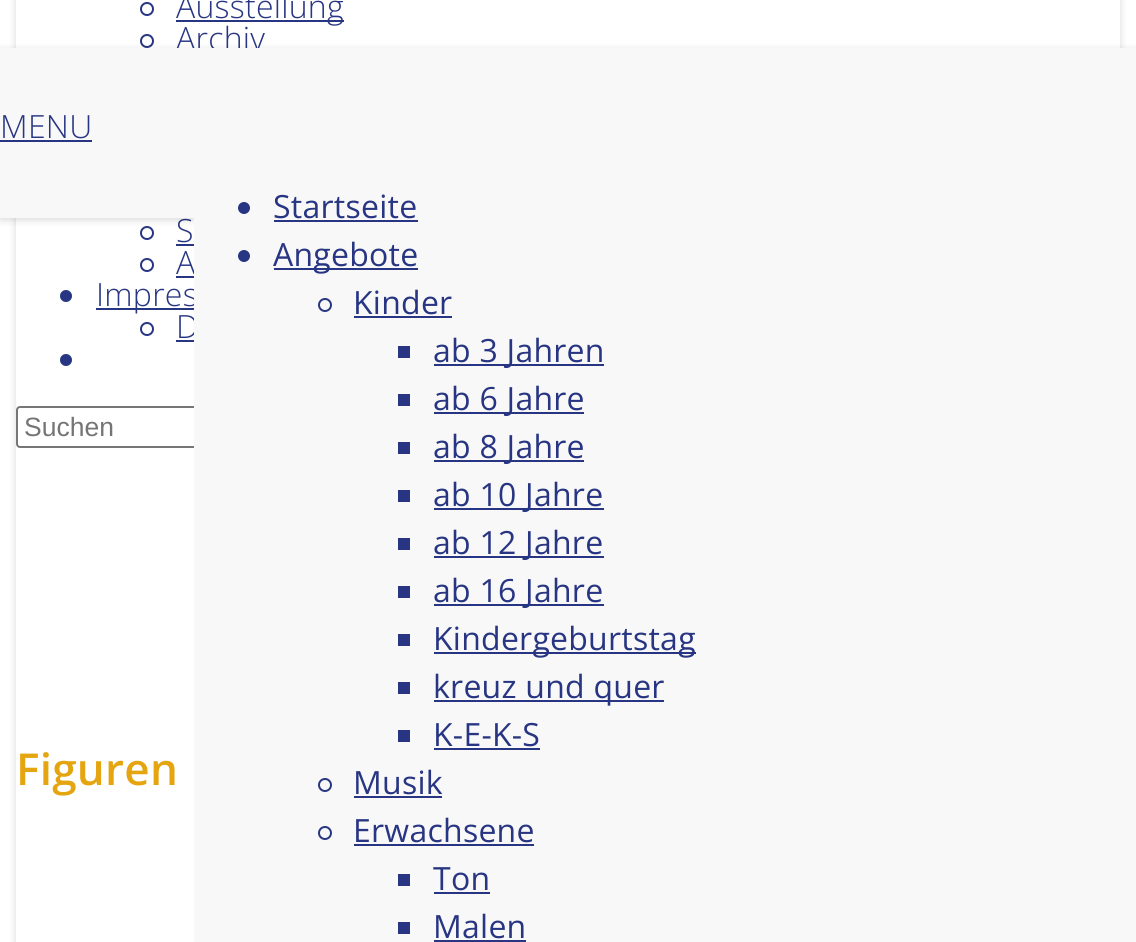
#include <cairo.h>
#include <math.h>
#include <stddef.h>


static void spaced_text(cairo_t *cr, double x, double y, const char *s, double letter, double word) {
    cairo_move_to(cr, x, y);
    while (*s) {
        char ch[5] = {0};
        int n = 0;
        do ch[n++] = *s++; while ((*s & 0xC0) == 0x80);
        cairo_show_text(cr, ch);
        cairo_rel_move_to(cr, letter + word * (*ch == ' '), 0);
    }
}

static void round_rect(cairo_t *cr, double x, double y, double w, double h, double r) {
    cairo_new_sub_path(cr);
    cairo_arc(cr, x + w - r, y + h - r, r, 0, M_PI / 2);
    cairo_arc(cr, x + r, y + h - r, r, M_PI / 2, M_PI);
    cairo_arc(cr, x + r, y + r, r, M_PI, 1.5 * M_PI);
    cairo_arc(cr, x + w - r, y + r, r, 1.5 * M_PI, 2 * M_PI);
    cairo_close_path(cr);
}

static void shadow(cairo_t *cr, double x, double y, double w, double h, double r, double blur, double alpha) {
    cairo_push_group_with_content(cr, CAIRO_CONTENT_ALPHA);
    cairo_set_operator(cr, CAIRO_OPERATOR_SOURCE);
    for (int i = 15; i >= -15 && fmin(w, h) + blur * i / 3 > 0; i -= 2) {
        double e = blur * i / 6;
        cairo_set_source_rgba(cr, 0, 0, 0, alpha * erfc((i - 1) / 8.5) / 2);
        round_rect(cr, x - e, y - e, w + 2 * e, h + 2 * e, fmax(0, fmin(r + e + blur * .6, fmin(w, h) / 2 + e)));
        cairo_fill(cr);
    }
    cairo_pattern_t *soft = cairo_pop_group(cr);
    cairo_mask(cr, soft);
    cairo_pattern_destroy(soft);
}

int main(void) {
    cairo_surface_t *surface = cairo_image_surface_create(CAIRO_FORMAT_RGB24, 1136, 942);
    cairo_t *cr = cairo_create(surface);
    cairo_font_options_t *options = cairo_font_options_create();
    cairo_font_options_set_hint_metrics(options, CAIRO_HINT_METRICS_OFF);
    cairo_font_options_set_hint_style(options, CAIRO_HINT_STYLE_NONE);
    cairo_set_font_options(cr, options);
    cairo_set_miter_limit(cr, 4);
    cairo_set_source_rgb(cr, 1, 1, 1);
    cairo_paint(cr);
    cairo_save(cr);
    cairo_set_fill_rule(cr, CAIRO_FILL_RULE_EVEN_ODD);
    cairo_new_path(cr);
    cairo_move_to(cr, 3, 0);
    cairo_line_to(cr, 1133, 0);
    cairo_line_to(cr, 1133, 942);
    cairo_line_to(cr, 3, 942);
    cairo_close_path(cr);
    cairo_move_to(cr, 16, -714);
    cairo_line_to(cr, 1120, -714);
    cairo_line_to(cr, 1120, 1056);
    cairo_line_to(cr, 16, 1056);
    cairo_close_path(cr);
    cairo_clip(cr);
    cairo_set_source_rgb(cr, 0, 0, 0);
    shadow(cr, 16, -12, 1104, 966, 0, 4, 0.15);
    cairo_restore(cr);
    cairo_arc(cr, 147, 9, 6, 0, 2 * M_PI);
    cairo_set_source_rgb(cr, 0.153, 0.208, 0.51);
    cairo_stroke(cr);
    cairo_rectangle(cr, 176, 20, 168, 2);
    cairo_fill(cr);
    cairo_select_font_face(cr, "Open Sans Light", CAIRO_FONT_SLANT_NORMAL, CAIRO_FONT_WEIGHT_NORMAL);
    cairo_set_font_size(cr, 32);
    spaced_text(cr, 176, 18, "Ausstellung", 0.25, 0);
    cairo_new_path(cr);
    cairo_arc(cr, 147, 41, 6, 0, 2 * M_PI);
    cairo_stroke(cr);
    spaced_text(cr, 176, 50, "Archiv", 0.25, 0);
    cairo_new_path(cr);
    cairo_arc(cr, 147, 233, 6, 0, 2 * M_PI);
    cairo_stroke(cr);
    spaced_text(cr, 176, 242, "S", 0.25, 0);
    cairo_rectangle(cr, 176, 244, 18, 2);
    cairo_fill(cr);
    cairo_arc(cr, 147, 265, 6, 0, 2 * M_PI);
    cairo_stroke(cr);
    spaced_text(cr, 176, 274, "A", 0.25, 0);
    cairo_rectangle(cr, 176, 276, 18, 2);
    cairo_fill(cr);
    cairo_arc(cr, 66, 296, 6, 0, 2 * M_PI);
    cairo_fill(cr);
    cairo_rectangle(cr, 96, 308, 98, 2);
    cairo_fill(cr);
    spaced_text(cr, 96, 306, "Impres", 0.25, 0);
    cairo_new_path(cr);
    cairo_arc(cr, 147, 329, 6, 0, 2 * M_PI);
    cairo_stroke(cr);
    spaced_text(cr, 176, 338, "D", 0.25, 0);
    cairo_rectangle(cr, 176, 340, 18, 2);
    cairo_fill(cr);
    cairo_arc(cr, 66, 360, 6, 0, 2 * M_PI);
    cairo_fill(cr);
    round_rect(cr, 17, 407, 368, 40, 3);
    cairo_set_source_rgb(cr, 0.463, 0.463, 0.463);
    cairo_stroke(cr);
    cairo_select_font_face(cr, "Liberation Sans", CAIRO_FONT_SLANT_NORMAL, CAIRO_FONT_WEIGHT_NORMAL);
    cairo_set_font_size(cr, 26.5);
    cairo_set_source_rgb(cr, 0.459, 0.459, 0.459);
    cairo_move_to(cr, 24, 436);
    cairo_show_text(cr, "Suchen");
    cairo_set_source_rgb(cr, 0, 0, 0);
    shadow(cr, 0, 50, 1136, 170, 0, 4, 0.15);
    cairo_set_source_rgb(cr, 0.969, 0.969, 0.969);
    cairo_rectangle(cr, 0, 48, 1136, 170);
    cairo_fill(cr);
    cairo_select_font_face(cr, "Open Sans Light", CAIRO_FONT_SLANT_NORMAL, CAIRO_FONT_WEIGHT_NORMAL);
    cairo_set_font_size(cr, 32);
    cairo_set_source_rgb(cr, 0.153, 0.208, 0.51);
    spaced_text(cr, 0, 138, "MENU", 0.25, 0);
    cairo_rectangle(cr, 0, 140, 92, 2);
    cairo_fill(cr);
    cairo_set_source_rgb(cr, 0.969, 0.969, 0.969);
    cairo_rectangle(cr, 194, 218, 942, 724);
    cairo_fill(cr);
    cairo_set_source_rgb(cr, 0.153, 0.208, 0.51);
    cairo_arc(cr, 244, 208, 6, 0, 2 * M_PI);
    cairo_fill(cr);
    cairo_select_font_face(cr, "Open Sans", CAIRO_FONT_SLANT_NORMAL, CAIRO_FONT_WEIGHT_NORMAL);
    spaced_text(cr, 273, 218, "Startseite", 0.25, 0);
    cairo_rectangle(cr, 274, 220, 144, 2);
    cairo_fill(cr);
    cairo_arc(cr, 244, 256, 6, 0, 2 * M_PI);
    cairo_fill(cr);
    cairo_rectangle(cr, 274, 268, 144, 2);
    cairo_fill(cr);
    spaced_text(cr, 273, 266, "Angebote", 0.25, 0);
    cairo_new_path(cr);
    cairo_arc(cr, 325, 305, 6, 0, 2 * M_PI);
    cairo_stroke(cr);
    spaced_text(cr, 353, 314, "Kinder", 0.25, 0);
    cairo_rectangle(cr, 354, 316, 98, 2);
    cairo_fill(cr);
    cairo_rectangle(cr, 398, 346, 12, 12);
    cairo_fill(cr);
    cairo_rectangle(cr, 434, 364, 170, 2);
    cairo_fill(cr);
    spaced_text(cr, 433, 362, "ab 3 Jahren", 0.25, 0);
    cairo_rectangle(cr, 398, 394, 12, 12);
    cairo_fill(cr);
    cairo_rectangle(cr, 434, 412, 150, 2);
    cairo_fill(cr);
    spaced_text(cr, 433, 410, "ab 6 Jahre", 0.25, 0);
    cairo_rectangle(cr, 398, 442, 12, 12);
    cairo_fill(cr);
    cairo_rectangle(cr, 434, 460, 150, 2);
    cairo_fill(cr);
    spaced_text(cr, 433, 458, "ab 8 Jahre", 0.25, 0);
    cairo_rectangle(cr, 398, 490, 12, 12);
    cairo_fill(cr);
    cairo_rectangle(cr, 434, 508, 170, 2);
    cairo_fill(cr);
    spaced_text(cr, 433, 506, "ab 10 Jahre", 0.25, 0);
    cairo_rectangle(cr, 398, 538, 12, 12);
    cairo_fill(cr);
    cairo_rectangle(cr, 434, 556, 170, 2);
    cairo_fill(cr);
    spaced_text(cr, 433, 554, "ab 12 Jahre", 0.25, 0);
    cairo_rectangle(cr, 398, 586, 12, 12);
    cairo_fill(cr);
    cairo_rectangle(cr, 434, 604, 170, 2);
    cairo_fill(cr);
    spaced_text(cr, 433, 602, "ab 16 Jahre", 0.25, 0);
    cairo_rectangle(cr, 398, 634, 12, 12);
    cairo_fill(cr);
    cairo_rectangle(cr, 434, 652, 262, 2);
    cairo_fill(cr);
    spaced_text(cr, 433, 650, "Kindergeburtstag", 0.25, 0);
    cairo_rectangle(cr, 398, 682, 12, 12);
    cairo_fill(cr);
    cairo_rectangle(cr, 434, 700, 230, 2);
    cairo_fill(cr);
    spaced_text(cr, 433, 698, "kreuz und quer", 0.25, 0);
    cairo_rectangle(cr, 398, 730, 12, 12);
    cairo_fill(cr);
    spaced_text(cr, 433, 746, "K-E-K-S", 0.25, 0);
    cairo_rectangle(cr, 434, 748, 106, 2);
    cairo_fill(cr);
    cairo_arc(cr, 325, 785, 6, 0, 2 * M_PI);
    cairo_stroke(cr);
    spaced_text(cr, 353, 794, "Musik", 0.25, 0);
    cairo_rectangle(cr, 354, 796, 88, 2);
    cairo_fill(cr);
    cairo_arc(cr, 325, 833, 6, 0, 2 * M_PI);
    cairo_stroke(cr);
    spaced_text(cr, 353, 842, "Erwachsene", 0.25, 0);
    cairo_rectangle(cr, 354, 844, 180, 2);
    cairo_fill(cr);
    cairo_rectangle(cr, 398, 874, 12, 12);
    cairo_fill(cr);
    spaced_text(cr, 433, 890, "Ton", 0.25, 0);
    cairo_rectangle(cr, 434, 892, 56, 2);
    cairo_fill(cr);
    cairo_rectangle(cr, 398, 922, 12, 12);
    cairo_fill(cr);
    spaced_text(cr, 433, 938, "Malen", 0.25, 0);
    cairo_rectangle(cr, 434, 940, 92, 2);
    cairo_fill(cr);
    cairo_select_font_face(cr, "Open Sans SemiBold", CAIRO_FONT_SLANT_NORMAL, CAIRO_FONT_WEIGHT_NORMAL);
    cairo_set_font_size(cr, 44);
    cairo_set_source_rgb(cr, 0.898, 0.647, 0.063);
    spaced_text(cr, 16, 785, "Figuren", 0.25, 0);
    cairo_surface_write_to_png(surface, "page.png");
    cairo_font_options_destroy(options);
    cairo_destroy(cr);
    cairo_surface_destroy(surface);
    return 0;
}
